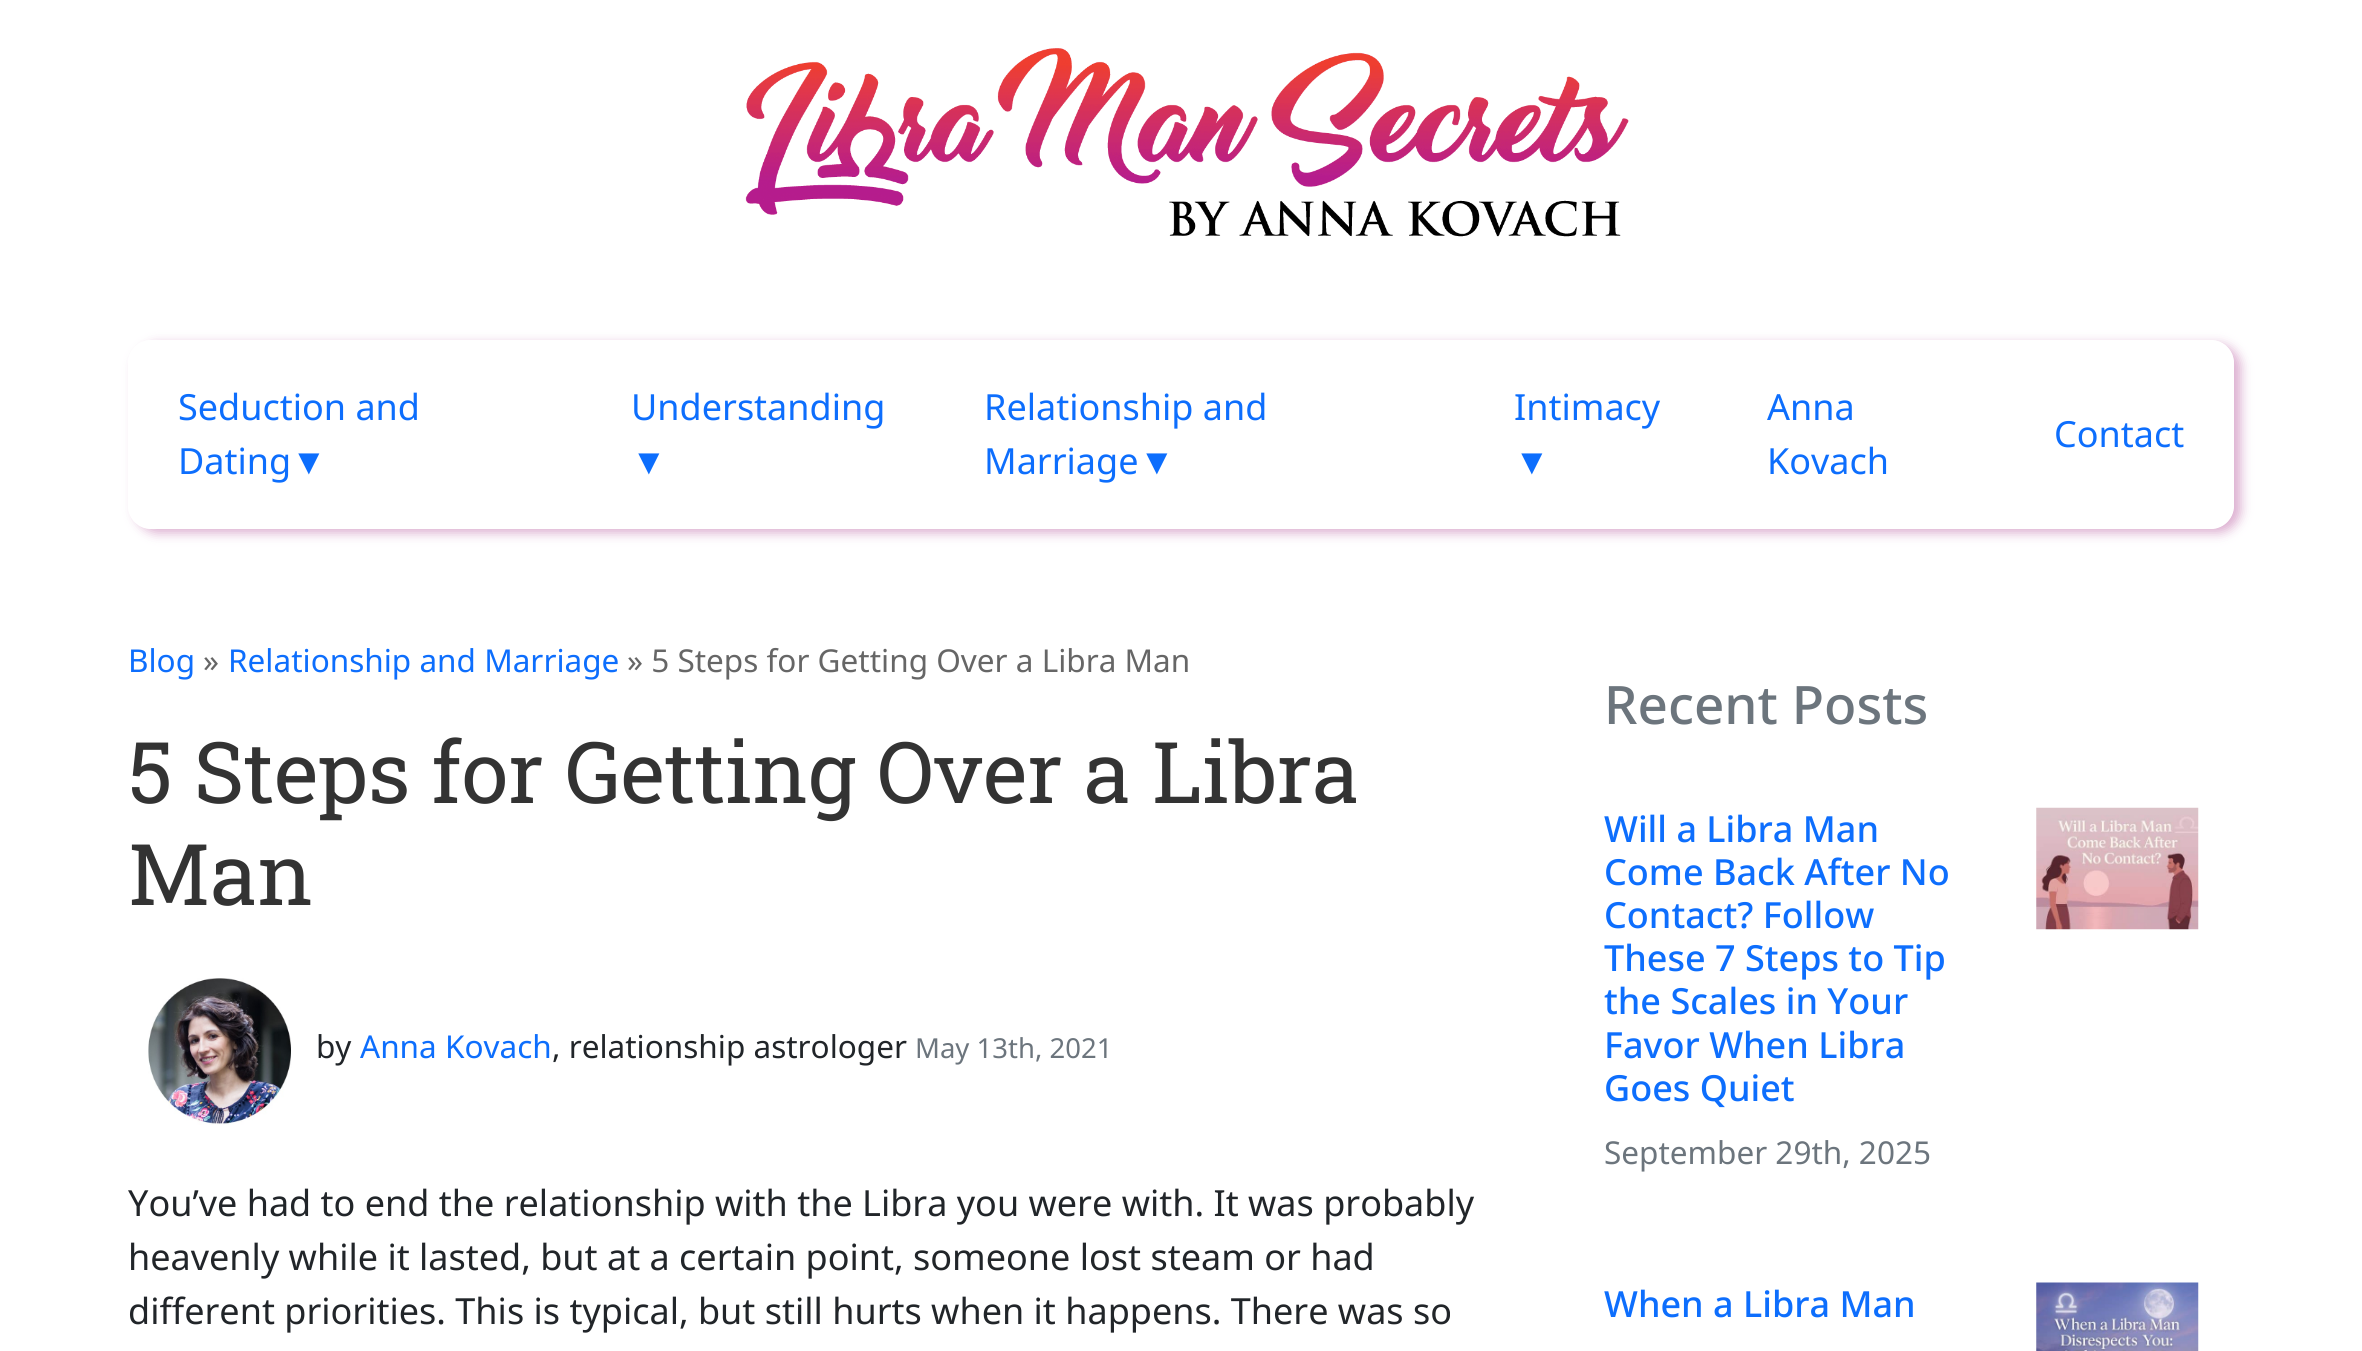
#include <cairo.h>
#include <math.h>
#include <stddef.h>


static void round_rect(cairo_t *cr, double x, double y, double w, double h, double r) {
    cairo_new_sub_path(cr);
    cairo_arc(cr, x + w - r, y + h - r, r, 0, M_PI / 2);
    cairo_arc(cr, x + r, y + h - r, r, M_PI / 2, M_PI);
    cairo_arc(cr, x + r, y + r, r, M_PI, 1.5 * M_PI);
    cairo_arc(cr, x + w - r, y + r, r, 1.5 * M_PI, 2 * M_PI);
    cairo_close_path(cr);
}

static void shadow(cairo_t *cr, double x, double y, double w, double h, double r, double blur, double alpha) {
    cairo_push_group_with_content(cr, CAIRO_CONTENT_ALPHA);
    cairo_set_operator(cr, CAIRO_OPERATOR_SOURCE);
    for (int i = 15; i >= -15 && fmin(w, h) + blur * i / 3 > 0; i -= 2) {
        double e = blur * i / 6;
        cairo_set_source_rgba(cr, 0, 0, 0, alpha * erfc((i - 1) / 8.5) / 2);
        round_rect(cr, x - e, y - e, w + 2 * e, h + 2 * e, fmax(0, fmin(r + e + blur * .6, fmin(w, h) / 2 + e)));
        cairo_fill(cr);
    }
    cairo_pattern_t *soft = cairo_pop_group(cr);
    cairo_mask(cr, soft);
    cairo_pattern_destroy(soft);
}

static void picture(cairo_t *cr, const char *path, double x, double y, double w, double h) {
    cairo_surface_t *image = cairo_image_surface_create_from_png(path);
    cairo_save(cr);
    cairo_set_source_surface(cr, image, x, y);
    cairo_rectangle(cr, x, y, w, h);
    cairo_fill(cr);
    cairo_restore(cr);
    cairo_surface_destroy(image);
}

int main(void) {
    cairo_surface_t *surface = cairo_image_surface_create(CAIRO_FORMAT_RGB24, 2362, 1351);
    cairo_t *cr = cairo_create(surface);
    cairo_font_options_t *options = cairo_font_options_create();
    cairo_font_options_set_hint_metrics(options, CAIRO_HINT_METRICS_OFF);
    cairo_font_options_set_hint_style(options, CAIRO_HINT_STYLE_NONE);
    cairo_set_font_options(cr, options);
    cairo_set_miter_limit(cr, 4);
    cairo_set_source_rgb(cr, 1, 1, 1);
    cairo_paint(cr);
    picture(cr, "img1.png", 745, 48, 884, 189);
    cairo_save(cr);
    cairo_set_fill_rule(cr, CAIRO_FILL_RULE_EVEN_ODD);
    cairo_new_path(cr);
    cairo_move_to(cr, 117, 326);
    cairo_line_to(cr, 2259, 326);
    cairo_line_to(cr, 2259, 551);
    cairo_line_to(cr, 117, 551);
    cairo_close_path(cr);
    cairo_move_to(cr, 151, 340);
    cairo_line_to(cr, 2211, 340);
    cairo_curve_to(cr, 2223.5, 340, 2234, 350.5, 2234, 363);
    cairo_line_to(cr, 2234, 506);
    cairo_curve_to(cr, 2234, 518.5, 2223.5, 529, 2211, 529);
    cairo_line_to(cr, 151, 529);
    cairo_curve_to(cr, 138.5, 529, 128, 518.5, 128, 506);
    cairo_line_to(cr, 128, 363);
    cairo_curve_to(cr, 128, 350.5, 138.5, 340, 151, 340);
    cairo_close_path(cr);
    cairo_clip(cr);
    cairo_set_source_rgb(cr, 0.694, 0.298, 0.592);
    shadow(cr, 135, 344, 2106, 189, 23, 5.5, 0.45);
    cairo_restore(cr);
    cairo_select_font_face(cr, "Noto Sans", CAIRO_FONT_SLANT_NORMAL, CAIRO_FONT_WEIGHT_NORMAL);
    cairo_set_font_size(cr, 36);
    cairo_set_source_rgb(cr, 0.051, 0.431, 0.992);
    cairo_move_to(cr, 178, 420);
    cairo_show_text(cr, "Seduction and");
    cairo_move_to(cr, 178, 474);
    cairo_show_text(cr, "Dating");
    cairo_select_font_face(cr, "Liberation Sans", CAIRO_FONT_SLANT_NORMAL, CAIRO_FONT_WEIGHT_NORMAL);
    cairo_move_to(cr, 291, 474);
    cairo_show_text(cr, "▼");
    cairo_select_font_face(cr, "Noto Sans", CAIRO_FONT_SLANT_NORMAL, CAIRO_FONT_WEIGHT_NORMAL);
    cairo_move_to(cr, 631, 420);
    cairo_show_text(cr, "Understanding");
    cairo_select_font_face(cr, "Liberation Sans", CAIRO_FONT_SLANT_NORMAL, CAIRO_FONT_WEIGHT_NORMAL);
    cairo_move_to(cr, 631, 474);
    cairo_show_text(cr, "▼");
    cairo_select_font_face(cr, "Noto Sans", CAIRO_FONT_SLANT_NORMAL, CAIRO_FONT_WEIGHT_NORMAL);
    cairo_move_to(cr, 984, 420);
    cairo_show_text(cr, "Relationship and");
    cairo_move_to(cr, 984, 474);
    cairo_show_text(cr, "Marriage");
    cairo_select_font_face(cr, "Liberation Sans", CAIRO_FONT_SLANT_NORMAL, CAIRO_FONT_WEIGHT_NORMAL);
    cairo_move_to(cr, 1139, 474);
    cairo_show_text(cr, "▼");
    cairo_select_font_face(cr, "Noto Sans", CAIRO_FONT_SLANT_NORMAL, CAIRO_FONT_WEIGHT_NORMAL);
    cairo_move_to(cr, 1514, 420);
    cairo_show_text(cr, "Intimacy");
    cairo_select_font_face(cr, "Liberation Sans", CAIRO_FONT_SLANT_NORMAL, CAIRO_FONT_WEIGHT_NORMAL);
    cairo_move_to(cr, 1514, 474);
    cairo_show_text(cr, "▼");
    cairo_select_font_face(cr, "Noto Sans", CAIRO_FONT_SLANT_NORMAL, CAIRO_FONT_WEIGHT_NORMAL);
    cairo_move_to(cr, 1767, 420);
    cairo_show_text(cr, "Anna");
    cairo_move_to(cr, 1767, 474);
    cairo_show_text(cr, "Kovach");
    cairo_move_to(cr, 2054, 447);
    cairo_show_text(cr, "Contact");
    cairo_set_font_size(cr, 31.5);
    cairo_move_to(cr, 128, 672);
    cairo_show_text(cr, "Blog");
    cairo_set_source_rgb(cr, 0.4, 0.4, 0.4);
    cairo_move_to(cr, 203, 672);
    cairo_show_text(cr, "»");
    cairo_set_source_rgb(cr, 0.051, 0.431, 0.992);
    cairo_move_to(cr, 228, 672);
    cairo_show_text(cr, "Relationship and Marriage");
    cairo_set_source_rgb(cr, 0.4, 0.4, 0.4);
    cairo_move_to(cr, 627, 672);
    cairo_show_text(cr, "» 5 Steps for Getting Over a Libra Man");
    cairo_select_font_face(cr, "Roboto Slab", CAIRO_FONT_SLANT_NORMAL, CAIRO_FONT_WEIGHT_NORMAL);
    cairo_set_font_size(cr, 85);
    cairo_set_source_rgb(cr, 0.2, 0.2, 0.2);
    cairo_move_to(cr, 128, 803);
    cairo_show_text(cr, "5 Steps for Getting Over a Libra");
    cairo_move_to(cr, 128, 905);
    cairo_show_text(cr, "Man");
    picture(cr, "img2.png", 148, 978, 144, 147);
    cairo_select_font_face(cr, "Noto Sans", CAIRO_FONT_SLANT_NORMAL, CAIRO_FONT_WEIGHT_NORMAL);
    cairo_set_font_size(cr, 31.5);
    cairo_set_source_rgb(cr, 0.129, 0.145, 0.161);
    cairo_move_to(cr, 316, 1058);
    cairo_show_text(cr, "by");
    cairo_set_source_rgb(cr, 0.051, 0.431, 0.992);
    cairo_move_to(cr, 360, 1058);
    cairo_show_text(cr, "Anna Kovach");
    cairo_set_source_rgb(cr, 0.129, 0.145, 0.161);
    cairo_move_to(cr, 552, 1058);
    cairo_show_text(cr, ", relationship astrologer");
    cairo_set_font_size(cr, 27.5);
    cairo_set_source_rgb(cr, 0.424, 0.459, 0.49);
    cairo_move_to(cr, 915, 1058);
    cairo_show_text(cr, "May 13th, 2021");
    cairo_set_font_size(cr, 36);
    cairo_set_source_rgb(cr, 0.129, 0.145, 0.161);
    cairo_move_to(cr, 128, 1216);
    cairo_show_text(cr, "You’ve had to end the relationship with the Libra you were with. It was probably");
    cairo_move_to(cr, 128, 1270);
    cairo_show_text(cr, "heavenly while it lasted, but at a certain point, someone lost steam or had");
    cairo_move_to(cr, 128, 1324);
    cairo_show_text(cr, "different priorities. This is typical, but still hurts when it happens. There was so");
    cairo_select_font_face(cr, "Noto Sans Medium", CAIRO_FONT_SLANT_NORMAL, CAIRO_FONT_WEIGHT_NORMAL);
    cairo_set_font_size(cr, 53);
    cairo_set_source_rgb(cr, 0.424, 0.459, 0.49);
    cairo_move_to(cr, 1604, 724);
    cairo_show_text(cr, "Recent Posts");
    cairo_set_font_size(cr, 36);
    cairo_set_source_rgb(cr, 0.051, 0.431, 0.992);
    cairo_move_to(cr, 1604, 842);
    cairo_show_text(cr, "Will a Libra Man");
    cairo_move_to(cr, 1604, 885);
    cairo_show_text(cr, "Come Back After No");
    cairo_move_to(cr, 1604, 928);
    cairo_show_text(cr, "Contact? Follow");
    cairo_move_to(cr, 1604, 971);
    cairo_show_text(cr, "These 7 Steps to Tip");
    cairo_move_to(cr, 1604, 1014);
    cairo_show_text(cr, "the Scales in Your");
    cairo_move_to(cr, 1604, 1058);
    cairo_show_text(cr, "Favor When Libra");
    cairo_move_to(cr, 1604, 1101);
    cairo_show_text(cr, "Goes Quiet");
    cairo_select_font_face(cr, "Noto Sans", CAIRO_FONT_SLANT_NORMAL, CAIRO_FONT_WEIGHT_NORMAL);
    cairo_set_font_size(cr, 31.5);
    cairo_set_source_rgb(cr, 0.424, 0.459, 0.49);
    cairo_move_to(cr, 1604, 1164);
    cairo_show_text(cr, "September 29th, 2025");
    picture(cr, "img3.png", 2036, 807, 163, 123);
    cairo_select_font_face(cr, "Noto Sans Medium", CAIRO_FONT_SLANT_NORMAL, CAIRO_FONT_WEIGHT_NORMAL);
    cairo_set_font_size(cr, 36);
    cairo_set_source_rgb(cr, 0.051, 0.431, 0.992);
    cairo_move_to(cr, 1604, 1317);
    cairo_show_text(cr, "When a Libra Man");
    picture(cr, "img4.png", 2036, 1282, 163, 69);
    cairo_surface_write_to_png(surface, "page.png");
    cairo_font_options_destroy(options);
    cairo_destroy(cr);
    cairo_surface_destroy(surface);
    return 0;
}
